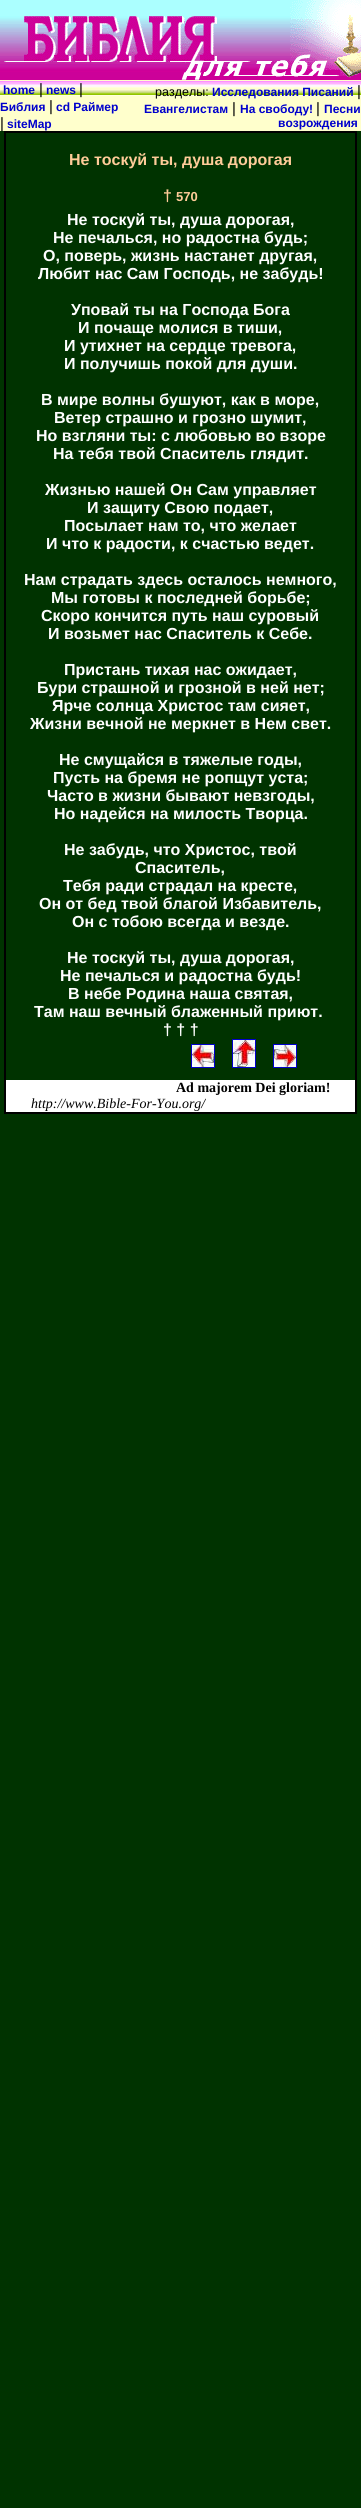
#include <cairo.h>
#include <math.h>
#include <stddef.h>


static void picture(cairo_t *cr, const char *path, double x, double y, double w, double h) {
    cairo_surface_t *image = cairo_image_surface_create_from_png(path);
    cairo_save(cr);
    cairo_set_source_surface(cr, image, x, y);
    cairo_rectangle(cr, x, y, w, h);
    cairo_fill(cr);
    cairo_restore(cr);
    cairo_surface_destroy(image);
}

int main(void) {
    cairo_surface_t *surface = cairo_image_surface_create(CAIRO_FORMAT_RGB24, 361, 2508);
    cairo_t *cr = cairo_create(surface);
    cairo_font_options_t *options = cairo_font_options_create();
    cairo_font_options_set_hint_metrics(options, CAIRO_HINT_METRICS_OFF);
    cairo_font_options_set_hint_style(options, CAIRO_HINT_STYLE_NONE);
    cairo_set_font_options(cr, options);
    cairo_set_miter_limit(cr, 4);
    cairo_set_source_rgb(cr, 0, 0.2, 0);
    cairo_paint(cr);
    picture(cr, "img1.png", 0, 0, 361, 80);
    picture(cr, "img2.png", 4, 0, 357, 80);
    cairo_set_source_rgb(cr, 1, 1, 0.8);
    cairo_rectangle(cr, 0, 80, 361, 51);
    cairo_fill(cr);
    picture(cr, "img3.png", 0, 81, 361, 15);
    cairo_select_font_face(cr, "Liberation Sans", CAIRO_FONT_SLANT_NORMAL, CAIRO_FONT_WEIGHT_BOLD);
    cairo_set_font_size(cr, 12);
    cairo_set_source_rgb(cr, 0, 0, 0.8);
    cairo_move_to(cr, 3, 94);
    cairo_show_text(cr, "home");
    cairo_select_font_face(cr, "Liberation Sans", CAIRO_FONT_SLANT_NORMAL, CAIRO_FONT_WEIGHT_NORMAL);
    cairo_set_font_size(cr, 15);
    cairo_set_source_rgb(cr, 0, 0, 0);
    cairo_move_to(cr, 39, 94);
    cairo_show_text(cr, "|");
    cairo_select_font_face(cr, "Liberation Sans", CAIRO_FONT_SLANT_NORMAL, CAIRO_FONT_WEIGHT_BOLD);
    cairo_set_font_size(cr, 12);
    cairo_set_source_rgb(cr, 0, 0, 0.8);
    cairo_move_to(cr, 46, 94);
    cairo_show_text(cr, "news");
    cairo_select_font_face(cr, "Liberation Sans", CAIRO_FONT_SLANT_NORMAL, CAIRO_FONT_WEIGHT_NORMAL);
    cairo_set_font_size(cr, 15);
    cairo_set_source_rgb(cr, 0, 0, 0);
    cairo_move_to(cr, 79, 94);
    cairo_show_text(cr, "|");
    cairo_select_font_face(cr, "Liberation Sans", CAIRO_FONT_SLANT_NORMAL, CAIRO_FONT_WEIGHT_BOLD);
    cairo_set_font_size(cr, 12);
    cairo_set_source_rgb(cr, 0, 0, 0.8);
    cairo_move_to(cr, 0, 111);
    cairo_show_text(cr, "Библия");
    cairo_select_font_face(cr, "Liberation Sans", CAIRO_FONT_SLANT_NORMAL, CAIRO_FONT_WEIGHT_NORMAL);
    cairo_set_font_size(cr, 15);
    cairo_set_source_rgb(cr, 0, 0, 0);
    cairo_move_to(cr, 49, 111);
    cairo_show_text(cr, "|");
    cairo_select_font_face(cr, "Liberation Sans", CAIRO_FONT_SLANT_NORMAL, CAIRO_FONT_WEIGHT_BOLD);
    cairo_set_font_size(cr, 12);
    cairo_set_source_rgb(cr, 0, 0, 0.8);
    cairo_move_to(cr, 56, 111);
    cairo_show_text(cr, "cd Раймер");
    cairo_select_font_face(cr, "Liberation Sans", CAIRO_FONT_SLANT_NORMAL, CAIRO_FONT_WEIGHT_NORMAL);
    cairo_set_font_size(cr, 15);
    cairo_set_source_rgb(cr, 0, 0, 0);
    cairo_move_to(cr, 0, 128);
    cairo_show_text(cr, "|");
    cairo_select_font_face(cr, "Liberation Sans", CAIRO_FONT_SLANT_NORMAL, CAIRO_FONT_WEIGHT_BOLD);
    cairo_set_font_size(cr, 12);
    cairo_set_source_rgb(cr, 0, 0, 0.8);
    cairo_move_to(cr, 7, 128);
    cairo_show_text(cr, "siteMap");
    cairo_select_font_face(cr, "Liberation Sans", CAIRO_FONT_SLANT_NORMAL, CAIRO_FONT_WEIGHT_NORMAL);
    cairo_set_font_size(cr, 12.5);
    cairo_set_source_rgb(cr, 0, 0, 0);
    cairo_move_to(cr, 155, 96);
    cairo_show_text(cr, "разделы:");
    cairo_select_font_face(cr, "Liberation Sans", CAIRO_FONT_SLANT_NORMAL, CAIRO_FONT_WEIGHT_BOLD);
    cairo_set_font_size(cr, 12);
    cairo_set_source_rgb(cr, 0, 0, 0.8);
    cairo_move_to(cr, 212, 96);
    cairo_show_text(cr, "Исследования Писаний");
    cairo_select_font_face(cr, "Liberation Sans", CAIRO_FONT_SLANT_NORMAL, CAIRO_FONT_WEIGHT_NORMAL);
    cairo_set_font_size(cr, 15);
    cairo_set_source_rgb(cr, 0, 0, 0);
    cairo_move_to(cr, 357, 96);
    cairo_show_text(cr, "|");
    cairo_select_font_face(cr, "Liberation Sans", CAIRO_FONT_SLANT_NORMAL, CAIRO_FONT_WEIGHT_BOLD);
    cairo_set_font_size(cr, 12);
    cairo_set_source_rgb(cr, 0, 0, 0.8);
    cairo_move_to(cr, 144, 113);
    cairo_show_text(cr, "Евангелистам");
    cairo_select_font_face(cr, "Liberation Sans", CAIRO_FONT_SLANT_NORMAL, CAIRO_FONT_WEIGHT_NORMAL);
    cairo_set_font_size(cr, 15);
    cairo_set_source_rgb(cr, 0, 0, 0);
    cairo_move_to(cr, 232, 113);
    cairo_show_text(cr, "|");
    cairo_select_font_face(cr, "Liberation Sans", CAIRO_FONT_SLANT_NORMAL, CAIRO_FONT_WEIGHT_BOLD);
    cairo_set_font_size(cr, 12);
    cairo_set_source_rgb(cr, 0, 0, 0.8);
    cairo_move_to(cr, 240, 113);
    cairo_show_text(cr, "На свободу!");
    cairo_select_font_face(cr, "Liberation Sans", CAIRO_FONT_SLANT_NORMAL, CAIRO_FONT_WEIGHT_NORMAL);
    cairo_set_font_size(cr, 15);
    cairo_set_source_rgb(cr, 0, 0, 0);
    cairo_move_to(cr, 316, 113);
    cairo_show_text(cr, "|");
    cairo_select_font_face(cr, "Liberation Sans", CAIRO_FONT_SLANT_NORMAL, CAIRO_FONT_WEIGHT_BOLD);
    cairo_set_font_size(cr, 12);
    cairo_set_source_rgb(cr, 0, 0, 0.8);
    cairo_move_to(cr, 324, 113);
    cairo_show_text(cr, "Песни");
    cairo_move_to(cr, 278, 127);
    cairo_show_text(cr, "возрождения");
    cairo_rectangle(cr, 5, 132, 351, 981);
    cairo_set_source_rgb(cr, 0, 0, 0);
    cairo_stroke(cr);
    cairo_set_font_size(cr, 16);
    cairo_set_source_rgb(cr, 1, 0.8, 0.6);
    cairo_move_to(cr, 69, 165);
    cairo_show_text(cr, "Не тоскуй ты, душа дорогая");
    cairo_move_to(cr, 163, 201);
    cairo_show_text(cr, "†");
    cairo_set_font_size(cr, 13);
    cairo_move_to(cr, 176, 201);
    cairo_show_text(cr, "570");
    cairo_set_font_size(cr, 16);
    cairo_set_source_rgb(cr, 1, 1, 1);
    cairo_move_to(cr, 67, 225);
    cairo_show_text(cr, "Не тоскуй ты, душа дорогая,");
    cairo_move_to(cr, 53, 243);
    cairo_show_text(cr, "Не печалься, но радостна будь;");
    cairo_move_to(cr, 43, 261);
    cairo_show_text(cr, "О, поверь, жизнь настанет другая,");
    cairo_move_to(cr, 38, 279);
    cairo_show_text(cr, "Любит нас Сам Господь, не забудь!");
    cairo_move_to(cr, 71, 315);
    cairo_show_text(cr, "Уповай ты на Господа Бога");
    cairo_move_to(cr, 78, 333);
    cairo_show_text(cr, "И почаще молися в тиши,");
    cairo_move_to(cr, 64, 351);
    cairo_show_text(cr, "И утихнет на сердце тревога,");
    cairo_move_to(cr, 64, 369);
    cairo_show_text(cr, "И получишь покой для души.");
    cairo_move_to(cr, 41, 405);
    cairo_show_text(cr, "В мире волны бушуют, как в море,");
    cairo_move_to(cr, 54, 423);
    cairo_show_text(cr, "Ветер страшно и грозно шумит,");
    cairo_move_to(cr, 36, 441);
    cairo_show_text(cr, "Но взгляни ты: с любовью во взоре");
    cairo_move_to(cr, 53, 459);
    cairo_show_text(cr, "На тебя твой Спаситель глядит.");
    cairo_move_to(cr, 45, 495);
    cairo_show_text(cr, "Жизнью нашей Он Сам управляет");
    cairo_move_to(cr, 87, 513);
    cairo_show_text(cr, "И защиту Свою подает,");
    cairo_move_to(cr, 64, 531);
    cairo_show_text(cr, "Посылает нам то, что желает");
    cairo_move_to(cr, 46, 549);
    cairo_show_text(cr, "И что к радости, к счастью ведет.");
    cairo_move_to(cr, 24, 585);
    cairo_show_text(cr, "Нам страдать здесь осталось немного,");
    cairo_move_to(cr, 51, 603);
    cairo_show_text(cr, "Мы готовы к последней борьбе;");
    cairo_move_to(cr, 41, 621);
    cairo_show_text(cr, "Скоро кончится путь наш суровый");
    cairo_move_to(cr, 48, 639);
    cairo_show_text(cr, "И возьмет нас Спаситель к Себе.");
    cairo_move_to(cr, 64, 675);
    cairo_show_text(cr, "Пристань тихая нас ожидает,");
    cairo_move_to(cr, 37, 693);
    cairo_show_text(cr, "Бури страшной и грозной в ней нет;");
    cairo_move_to(cr, 52, 711);
    cairo_show_text(cr, "Ярче солнца Христос там сияет,");
    cairo_move_to(cr, 30, 729);
    cairo_show_text(cr, "Жизни вечной не меркнет в Нем свет.");
    cairo_move_to(cr, 59, 765);
    cairo_show_text(cr, "Не смущайся в тяжелые годы,");
    cairo_move_to(cr, 53, 783);
    cairo_show_text(cr, "Пусть на бремя не ропщут уста;");
    cairo_move_to(cr, 47, 801);
    cairo_show_text(cr, "Часто в жизни бывают невзгоды,");
    cairo_move_to(cr, 54, 819);
    cairo_show_text(cr, "Но надейся на милость Творца.");
    cairo_move_to(cr, 64, 855);
    cairo_show_text(cr, "Не забудь, что Христос, твой");
    cairo_move_to(cr, 135, 873);
    cairo_show_text(cr, "Спаситель,");
    cairo_move_to(cr, 63, 891);
    cairo_show_text(cr, "Тебя ради страдал на кресте,");
    cairo_move_to(cr, 39, 909);
    cairo_show_text(cr, "Он от бед твой благой Избавитель,");
    cairo_move_to(cr, 72, 927);
    cairo_show_text(cr, "Он с тобою всегда и везде.");
    cairo_move_to(cr, 67, 963);
    cairo_show_text(cr, "Не тоскуй ты, душа дорогая,");
    cairo_move_to(cr, 60, 981);
    cairo_show_text(cr, "Не печалься и радостна будь!");
    cairo_move_to(cr, 68, 999);
    cairo_show_text(cr, "В небе Родина наша святая,");
    cairo_move_to(cr, 34, 1017);
    cairo_show_text(cr, "Там наш вечный блаженный приют.");
    cairo_move_to(cr, 163, 1035);
    cairo_show_text(cr, "† † †");
    cairo_rectangle(cr, 232.5, 1039.5, 23, 28);
    cairo_set_source_rgb(cr, 0, 0, 0.8);
    cairo_set_line_width(cr, 1);
    cairo_stroke(cr);
    cairo_rectangle(cr, 191.5, 1044.5, 23, 23);
    cairo_stroke(cr);
    picture(cr, "img4.png", 233, 1040, 22, 27);
    cairo_rectangle(cr, 273.5, 1044.5, 23, 23);
    cairo_stroke(cr);
    picture(cr, "img5.png", 192, 1045, 22, 22);
    picture(cr, "img6.png", 274, 1045, 22, 22);
    cairo_set_source_rgb(cr, 1, 1, 1);
    cairo_rectangle(cr, 6, 1080, 349, 32);
    cairo_fill(cr);
    cairo_select_font_face(cr, "Liberation Serif", CAIRO_FONT_SLANT_NORMAL, CAIRO_FONT_WEIGHT_BOLD);
    cairo_set_font_size(cr, 14);
    cairo_set_source_rgb(cr, 0, 0, 0);
    cairo_move_to(cr, 176, 1092);
    cairo_show_text(cr, "Ad majorem Dei gloriam!");
    cairo_select_font_face(cr, "Liberation Serif", CAIRO_FONT_SLANT_ITALIC, CAIRO_FONT_WEIGHT_NORMAL);
    cairo_move_to(cr, 31, 1108);
    cairo_show_text(cr, "http://www.Bible-For-You.org/");
    cairo_surface_write_to_png(surface, "page.png");
    cairo_font_options_destroy(options);
    cairo_destroy(cr);
    cairo_surface_destroy(surface);
    return 0;
}
